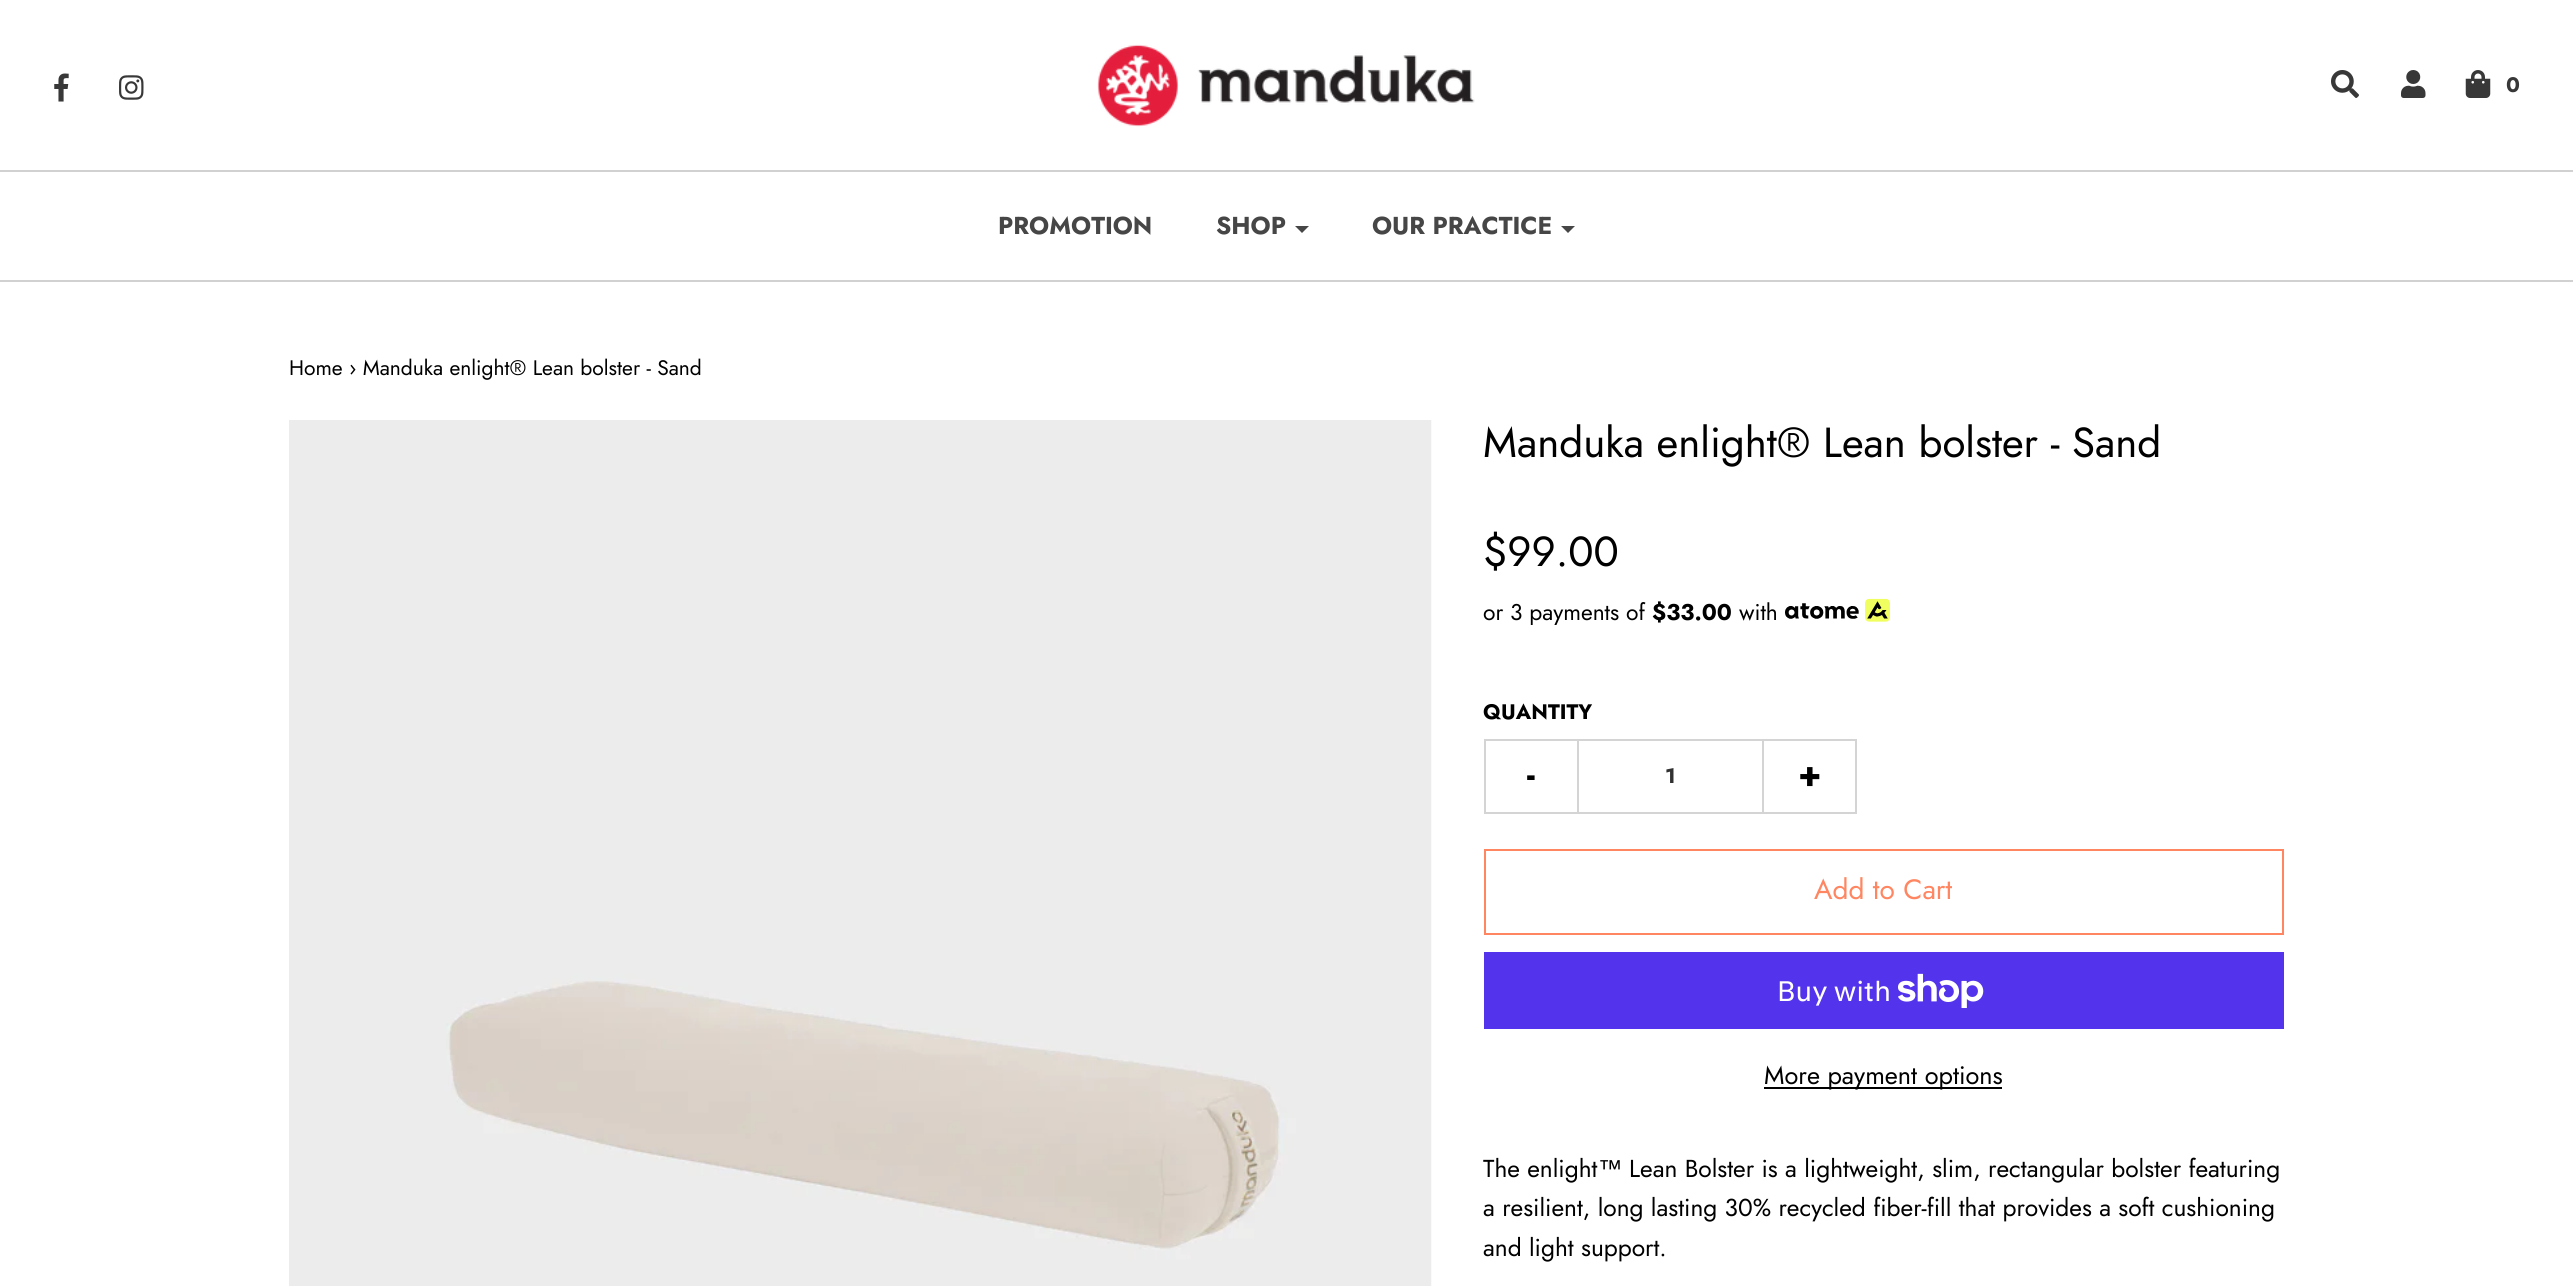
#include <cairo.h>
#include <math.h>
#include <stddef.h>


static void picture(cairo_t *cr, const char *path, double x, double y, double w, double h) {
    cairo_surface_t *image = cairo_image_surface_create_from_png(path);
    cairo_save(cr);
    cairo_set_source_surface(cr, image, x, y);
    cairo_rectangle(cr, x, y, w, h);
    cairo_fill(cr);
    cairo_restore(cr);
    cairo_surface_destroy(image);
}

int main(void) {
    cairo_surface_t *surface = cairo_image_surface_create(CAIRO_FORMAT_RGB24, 2573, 1286);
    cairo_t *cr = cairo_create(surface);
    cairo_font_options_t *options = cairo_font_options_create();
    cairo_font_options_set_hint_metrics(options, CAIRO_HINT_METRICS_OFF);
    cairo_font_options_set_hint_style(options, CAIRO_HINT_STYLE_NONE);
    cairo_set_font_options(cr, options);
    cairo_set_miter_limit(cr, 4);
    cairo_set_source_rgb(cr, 1, 1, 1);
    cairo_paint(cr);
    picture(cr, "img1.png", 54, 73, 15, 29);
    picture(cr, "img2.png", 119, 75, 25, 25);
    picture(cr, "img3.png", 1097, 44, 378, 83);
    picture(cr, "img4.png", 2331, 70, 28, 28);
    picture(cr, "img5.png", 2401, 70, 25, 28);
    picture(cr, "img6.png", 2465, 70, 26, 28);
    cairo_select_font_face(cr, "Jost", CAIRO_FONT_SLANT_NORMAL, CAIRO_FONT_WEIGHT_BOLD);
    cairo_set_font_size(cr, 21);
    cairo_set_source_rgb(cr, 0.22, 0.22, 0.22);
    cairo_move_to(cr, 2506, 92);
    cairo_show_text(cr, "0");
    cairo_set_source_rgb(cr, 0.82, 0.82, 0.82);
    cairo_rectangle(cr, 0, 170, 2573, 2);
    cairo_fill(cr);
    cairo_rectangle(cr, 0, 280, 2573, 2);
    cairo_fill(cr);
    cairo_set_font_size(cr, 24.5);
    cairo_set_source_rgb(cr, 0.275, 0.275, 0.275);
    cairo_move_to(cr, 998, 234);
    cairo_show_text(cr, "PROMOTION");
    cairo_move_to(cr, 1216, 234);
    cairo_show_text(cr, "SHOP");
    cairo_new_path(cr);
    cairo_move_to(cr, 1295, 226);
    cairo_line_to(cr, 1309, 226);
    cairo_line_to(cr, 1302, 233);
    cairo_close_path(cr);
    cairo_fill(cr);
    cairo_move_to(cr, 1372, 234);
    cairo_show_text(cr, "OUR PRACTICE");
    cairo_new_path(cr);
    cairo_move_to(cr, 1561, 226);
    cairo_line_to(cr, 1575, 226);
    cairo_line_to(cr, 1568, 233);
    cairo_close_path(cr);
    cairo_fill(cr);
    cairo_select_font_face(cr, "Jost", CAIRO_FONT_SLANT_NORMAL, CAIRO_FONT_WEIGHT_NORMAL);
    cairo_set_font_size(cr, 21);
    cairo_set_source_rgb(cr, 0, 0, 0);
    cairo_move_to(cr, 289, 375);
    cairo_show_text(cr, "Home › Manduka enlight® Lean bolster - Sand");
    picture(cr, "img7.png", 289, 420, 1143, 866);
    cairo_set_font_size(cr, 42);
    cairo_move_to(cr, 1483, 457);
    cairo_show_text(cr, "Manduka enlight® Lean bolster - Sand");
    cairo_move_to(cr, 1483, 566);
    cairo_show_text(cr, "$99.00");
    cairo_set_font_size(cr, 22.75);
    cairo_move_to(cr, 1483, 620);
    cairo_show_text(cr, "or 3 payments of");
    cairo_select_font_face(cr, "Jost", CAIRO_FONT_SLANT_NORMAL, CAIRO_FONT_WEIGHT_BOLD);
    cairo_move_to(cr, 1652, 620);
    cairo_show_text(cr, "$33.00");
    cairo_select_font_face(cr, "Jost", CAIRO_FONT_SLANT_NORMAL, CAIRO_FONT_WEIGHT_NORMAL);
    cairo_move_to(cr, 1739, 620);
    cairo_show_text(cr, "with");
    picture(cr, "img8.png", 1785, 598, 105, 24);
    cairo_select_font_face(cr, "Jost", CAIRO_FONT_SLANT_NORMAL, CAIRO_FONT_WEIGHT_BOLD);
    cairo_set_font_size(cr, 21);
    cairo_move_to(cr, 1483, 719);
    cairo_show_text(cr, "QUANTITY");
    cairo_set_source_rgb(cr, 0.831, 0.831, 0.831);
    cairo_rectangle(cr, 1484, 739, 93, 2);
    cairo_fill(cr);
    cairo_rectangle(cr, 1484, 812, 93, 2);
    cairo_fill(cr);
    cairo_rectangle(cr, 1484, 739, 2, 75);
    cairo_fill(cr);
    cairo_set_font_size(cr, 35);
    cairo_set_source_rgb(cr, 0, 0, 0);
    cairo_move_to(cr, 1527, 786);
    cairo_show_text(cr, "-");
    cairo_rectangle(cr, 1578, 740, 185, 73);
    cairo_set_source_rgb(cr, 0.831, 0.831, 0.831);
    cairo_stroke(cr);
    cairo_set_font_size(cr, 21);
    cairo_set_source_rgb(cr, 0.192, 0.192, 0.192);
    cairo_move_to(cr, 1665, 783);
    cairo_show_text(cr, "1");
    cairo_set_source_rgb(cr, 0.831, 0.831, 0.831);
    cairo_rectangle(cr, 1764, 739, 93, 2);
    cairo_fill(cr);
    cairo_rectangle(cr, 1855, 739, 2, 75);
    cairo_fill(cr);
    cairo_rectangle(cr, 1764, 812, 93, 2);
    cairo_fill(cr);
    cairo_set_font_size(cr, 35);
    cairo_set_source_rgb(cr, 0, 0, 0);
    cairo_move_to(cr, 1798, 786);
    cairo_show_text(cr, "+");
    cairo_rectangle(cr, 1485, 850, 798, 84);
    cairo_set_source_rgb(cr, 1, 0.525, 0.38);
    cairo_stroke(cr);
    cairo_select_font_face(cr, "Jost", CAIRO_FONT_SLANT_NORMAL, CAIRO_FONT_WEIGHT_NORMAL);
    cairo_set_font_size(cr, 28);
    cairo_move_to(cr, 1814, 899);
    cairo_show_text(cr, "Add to Cart");
    cairo_set_source_rgb(cr, 0.329, 0.2, 0.922);
    cairo_rectangle(cr, 1484, 952, 800, 77);
    cairo_fill(cr);
    cairo_select_font_face(cr, "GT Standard", CAIRO_FONT_SLANT_NORMAL, CAIRO_FONT_WEIGHT_NORMAL);
    cairo_set_source_rgb(cr, 1, 1, 1);
    cairo_move_to(cr, 1777, 1001);
    cairo_show_text(cr, "Buy with");
    picture(cr, "img9.png", 1898, 973, 86, 35);
    cairo_set_source_rgb(cr, 0, 0, 0);
    cairo_rectangle(cr, 1764, 1087, 238, 2);
    cairo_fill(cr);
    cairo_select_font_face(cr, "Jost", CAIRO_FONT_SLANT_NORMAL, CAIRO_FONT_WEIGHT_NORMAL);
    cairo_set_font_size(cr, 25.25);
    cairo_move_to(cr, 1764, 1084);
    cairo_show_text(cr, "More payment options");
    cairo_set_font_size(cr, 24.5);
    cairo_move_to(cr, 1483, 1177);
    cairo_show_text(cr, "The enlight");
    cairo_select_font_face(cr, "Liberation Sans", CAIRO_FONT_SLANT_NORMAL, CAIRO_FONT_WEIGHT_NORMAL);
    cairo_move_to(cr, 1598, 1177);
    cairo_show_text(cr, "™");
    cairo_select_font_face(cr, "Jost", CAIRO_FONT_SLANT_NORMAL, CAIRO_FONT_WEIGHT_NORMAL);
    cairo_move_to(cr, 1629, 1177);
    cairo_show_text(cr, "Lean Bolster is a lightweight, slim, rectangular bolster featuring");
    cairo_move_to(cr, 1483, 1216);
    cairo_show_text(cr, "a resilient, long lasting 30% recycled fiber-fill that provides a soft cushioning");
    cairo_move_to(cr, 1483, 1256);
    cairo_show_text(cr, "and light support.");
    cairo_surface_write_to_png(surface, "page.png");
    cairo_font_options_destroy(options);
    cairo_destroy(cr);
    cairo_surface_destroy(surface);
    return 0;
}
